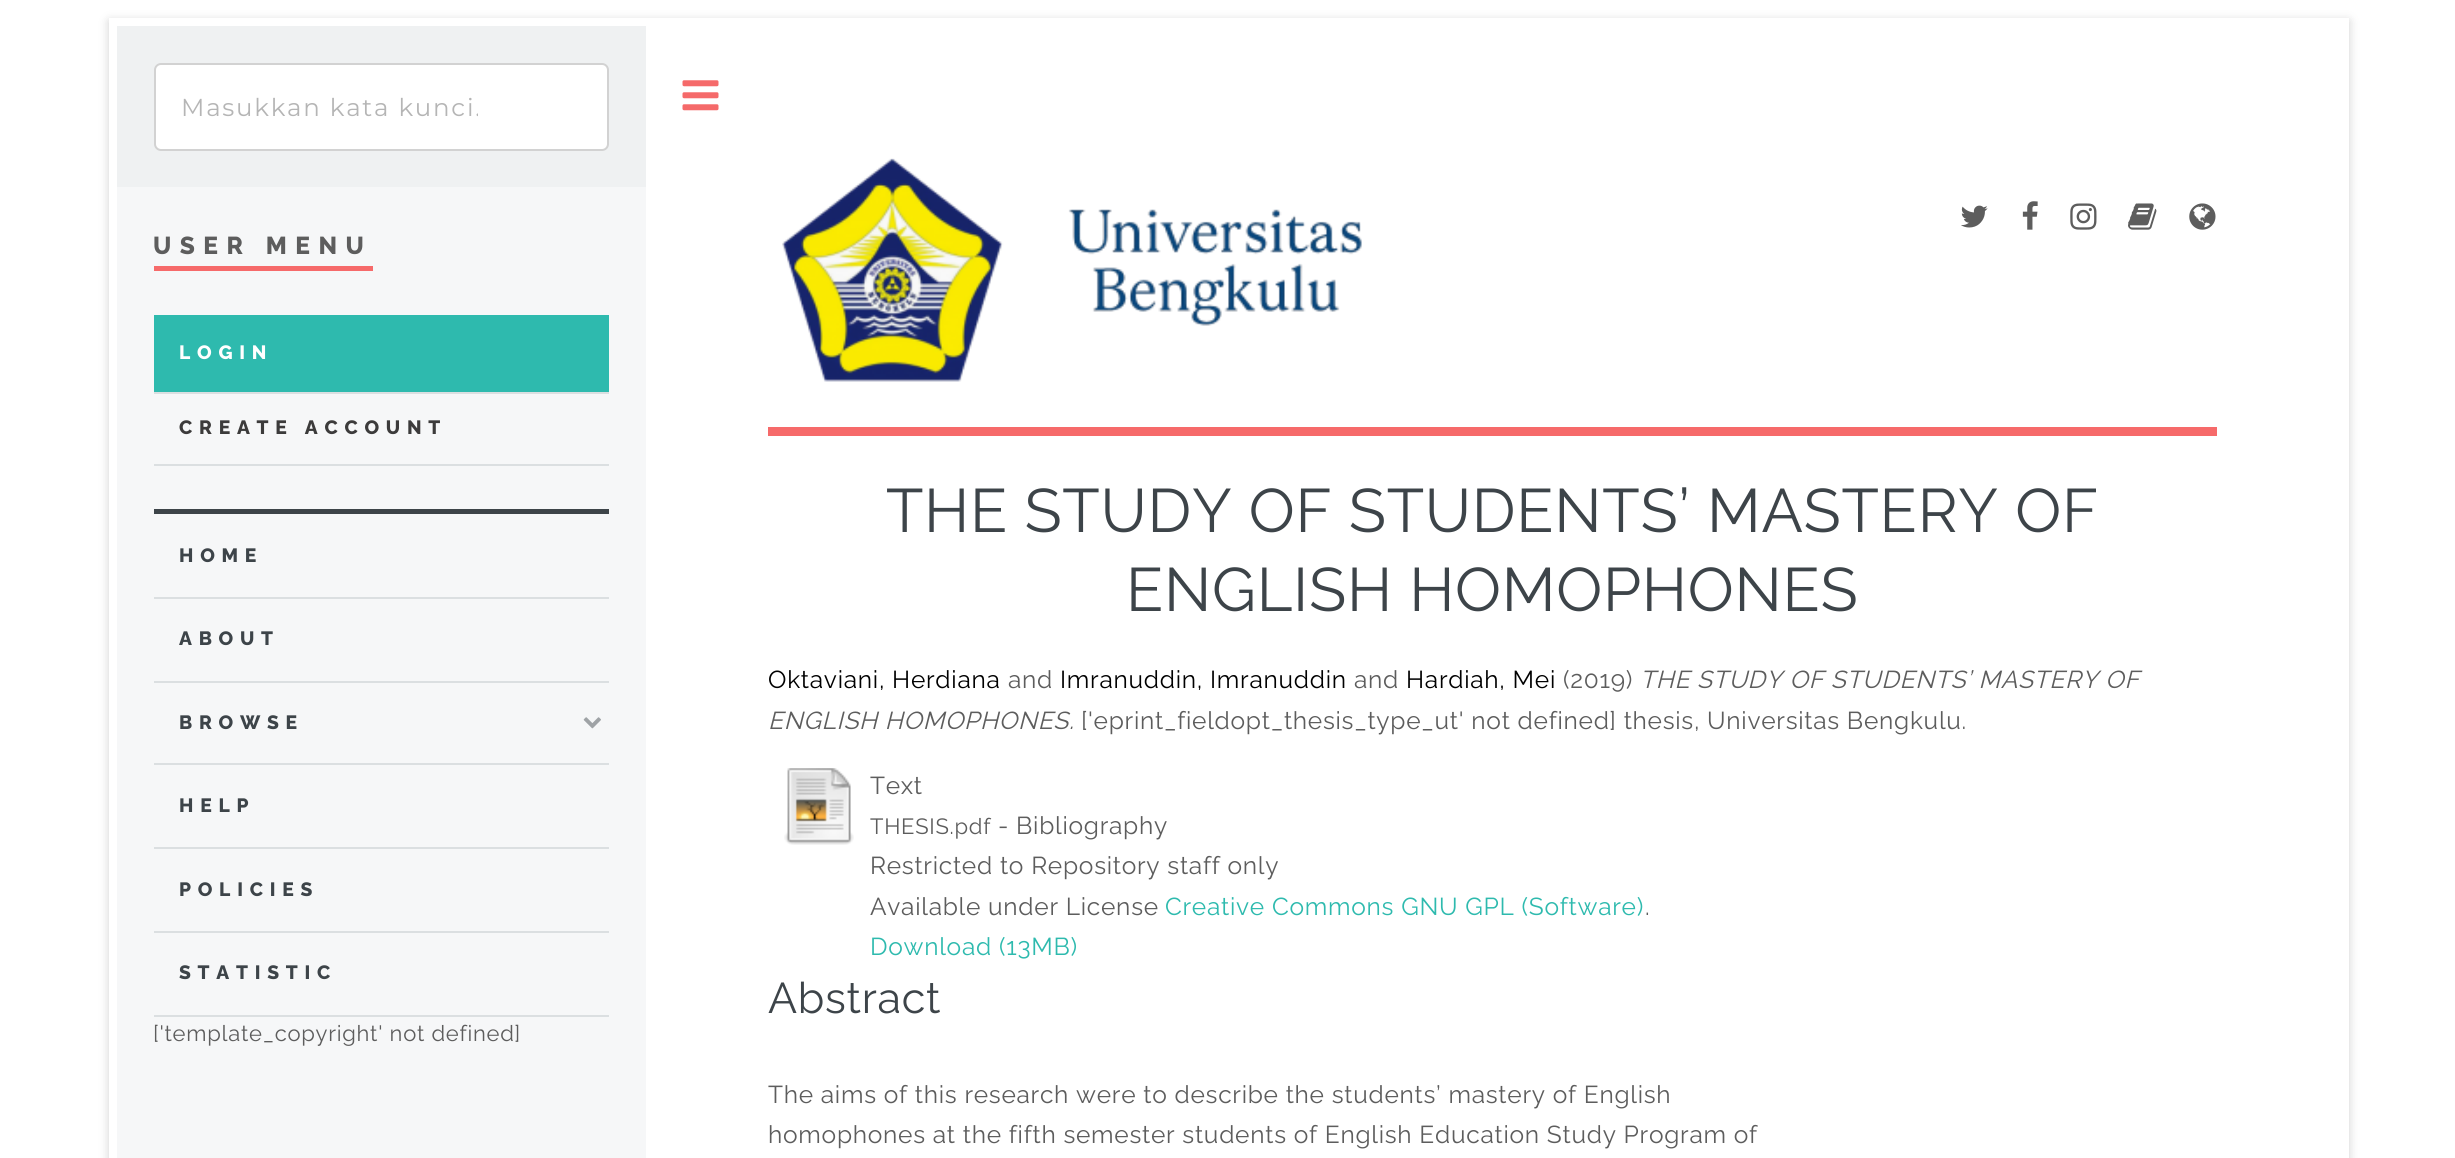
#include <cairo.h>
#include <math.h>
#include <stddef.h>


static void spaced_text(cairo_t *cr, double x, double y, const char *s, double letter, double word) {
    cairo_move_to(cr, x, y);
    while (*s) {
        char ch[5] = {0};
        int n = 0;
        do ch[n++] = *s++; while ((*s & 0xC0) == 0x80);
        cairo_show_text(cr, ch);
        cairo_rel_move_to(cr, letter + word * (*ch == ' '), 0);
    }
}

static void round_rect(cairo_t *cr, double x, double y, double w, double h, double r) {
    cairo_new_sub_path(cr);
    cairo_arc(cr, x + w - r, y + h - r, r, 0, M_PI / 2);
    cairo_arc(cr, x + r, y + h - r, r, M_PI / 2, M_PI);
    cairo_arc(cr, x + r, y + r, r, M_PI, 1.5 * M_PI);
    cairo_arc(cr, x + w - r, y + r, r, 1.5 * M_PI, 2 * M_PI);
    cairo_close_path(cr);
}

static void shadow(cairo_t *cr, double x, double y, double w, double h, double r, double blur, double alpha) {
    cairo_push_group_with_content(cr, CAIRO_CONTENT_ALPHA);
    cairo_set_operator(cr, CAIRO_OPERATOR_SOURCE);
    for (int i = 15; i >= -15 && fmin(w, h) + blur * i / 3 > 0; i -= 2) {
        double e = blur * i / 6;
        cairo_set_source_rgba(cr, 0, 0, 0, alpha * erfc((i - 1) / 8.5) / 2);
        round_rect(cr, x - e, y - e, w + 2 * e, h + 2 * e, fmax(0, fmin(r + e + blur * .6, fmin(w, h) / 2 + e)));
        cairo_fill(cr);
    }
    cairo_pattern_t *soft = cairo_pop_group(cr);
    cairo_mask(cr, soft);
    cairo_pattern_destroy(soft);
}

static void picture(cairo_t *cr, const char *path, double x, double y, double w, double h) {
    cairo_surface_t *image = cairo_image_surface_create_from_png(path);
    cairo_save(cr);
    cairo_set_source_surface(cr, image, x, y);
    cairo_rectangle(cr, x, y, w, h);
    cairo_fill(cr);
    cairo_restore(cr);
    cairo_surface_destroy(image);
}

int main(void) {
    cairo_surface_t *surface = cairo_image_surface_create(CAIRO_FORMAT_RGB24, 2455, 1158);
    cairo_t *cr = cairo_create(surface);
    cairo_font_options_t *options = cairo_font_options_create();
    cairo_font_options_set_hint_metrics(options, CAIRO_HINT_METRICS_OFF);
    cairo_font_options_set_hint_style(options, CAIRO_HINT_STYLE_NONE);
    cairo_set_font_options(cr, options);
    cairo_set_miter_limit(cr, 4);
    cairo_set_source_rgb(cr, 1, 1, 1);
    cairo_paint(cr);
    cairo_set_source_rgb(cr, 0.392, 0.392, 0.392);
    shadow(cr, 109, 21, 2240, 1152, 0, 5, 0.3);
    cairo_set_source_rgb(cr, 1, 1, 1);
    cairo_rectangle(cr, 109, 18, 2240, 1140);
    cairo_fill(cr);
    cairo_set_source_rgb(cr, 0.961, 0.965, 0.969);
    cairo_rectangle(cr, 117, 187, 529, 971);
    cairo_fill(cr);
    cairo_set_source_rgb(cr, 0.937, 0.945, 0.949);
    cairo_rectangle(cr, 117, 26, 529, 161);
    cairo_fill(cr);
    cairo_set_source_rgb(cr, 1, 1, 1);
    round_rect(cr, 155, 64, 453, 86, 6);
    cairo_fill_preserve(cr);
    cairo_set_source_rgb(cr, 0.824, 0.824, 0.824);
    cairo_stroke(cr);
    cairo_save(cr);
    cairo_rectangle(cr, 182, 91, 296, 32);
    cairo_clip(cr);
    cairo_select_font_face(cr, "Montserrat", CAIRO_FONT_SLANT_NORMAL, CAIRO_FONT_WEIGHT_NORMAL);
    cairo_set_font_size(cr, 24.5);
    cairo_set_source_rgb(cr, 0.71, 0.71, 0.71);
    spaced_text(cr, 181, 116, "Masukkan kata kunci.", 1.75, 0);
    cairo_restore(cr);
    cairo_set_source_rgb(cr, 0.961, 0.416, 0.416);
    cairo_rectangle(cr, 154, 266, 219, 5);
    cairo_fill(cr);
    cairo_select_font_face(cr, "Raleway ExtraBold", CAIRO_FONT_SLANT_NORMAL, CAIRO_FONT_WEIGHT_NORMAL);
    cairo_set_font_size(cr, 24.5);
    cairo_set_source_rgb(cr, 0.365, 0.365, 0.365);
    spaced_text(cr, 153, 254, "USER MENU", 8.5, 0);
    cairo_set_source_rgb(cr, 0.18, 0.729, 0.682);
    cairo_rectangle(cr, 154, 315, 455, 77);
    cairo_fill(cr);
    cairo_set_source_rgb(cr, 0.859, 0.875, 0.882);
    cairo_rectangle(cr, 154, 392, 455, 2);
    cairo_fill(cr);
    cairo_set_font_size(cr, 19.25);
    cairo_set_source_rgb(cr, 1, 1, 1);
    spaced_text(cr, 179, 359, "LOGIN", 6.75, 0);
    cairo_set_source_rgb(cr, 0.859, 0.875, 0.882);
    cairo_rectangle(cr, 154, 464, 455, 2);
    cairo_fill(cr);
    cairo_set_source_rgb(cr, 0.235, 0.231, 0.231);
    spaced_text(cr, 179, 434, "CREATE ACCOUNT", 6.75, 0);
    cairo_set_source_rgb(cr, 0.239, 0.267, 0.286);
    cairo_rectangle(cr, 154, 509, 455, 5);
    cairo_fill(cr);
    spaced_text(cr, 179, 562, "HOME", 6.75, 0);
    cairo_set_source_rgb(cr, 0.859, 0.875, 0.882);
    cairo_rectangle(cr, 154, 597, 455, 2);
    cairo_fill(cr);
    cairo_set_source_rgb(cr, 0.239, 0.267, 0.286);
    spaced_text(cr, 179, 645, "ABOUT", 6.75, 0);
    cairo_set_source_rgb(cr, 0.859, 0.875, 0.882);
    cairo_rectangle(cr, 154, 681, 455, 2);
    cairo_fill(cr);
    cairo_set_source_rgb(cr, 0.239, 0.267, 0.286);
    spaced_text(cr, 179, 729, "BROWSE", 6.75, 0);
    picture(cr, "img1.png", 583, 717, 18, 12);
    cairo_set_source_rgb(cr, 0.859, 0.875, 0.882);
    cairo_rectangle(cr, 154, 763, 455, 2);
    cairo_fill(cr);
    cairo_set_source_rgb(cr, 0.239, 0.267, 0.286);
    spaced_text(cr, 179, 812, "HELP", 6.75, 0);
    cairo_set_source_rgb(cr, 0.859, 0.875, 0.882);
    cairo_rectangle(cr, 154, 847, 455, 2);
    cairo_fill(cr);
    cairo_set_source_rgb(cr, 0.239, 0.267, 0.286);
    spaced_text(cr, 179, 896, "POLICIES", 6.75, 0);
    cairo_set_source_rgb(cr, 0.859, 0.875, 0.882);
    cairo_rectangle(cr, 154, 931, 455, 2);
    cairo_fill(cr);
    cairo_rectangle(cr, 154, 1015, 455, 2);
    cairo_fill(cr);
    cairo_set_source_rgb(cr, 0.239, 0.267, 0.286);
    spaced_text(cr, 179, 979, "STATISTIC", 6.75, 0);
    cairo_select_font_face(cr, "Raleway", CAIRO_FONT_SLANT_NORMAL, CAIRO_FONT_WEIGHT_NORMAL);
    cairo_set_font_size(cr, 22);
    cairo_set_source_rgb(cr, 0.365, 0.365, 0.365);
    spaced_text(cr, 153, 1041, "['template_copyright' not defined]", 0.73, 0);
    picture(cr, "img2.png", 682, 80, 37, 31);
    cairo_set_source_rgb(cr, 0.961, 0.416, 0.416);
    cairo_rectangle(cr, 768, 427, 1449, 9);
    cairo_fill(cr);
    picture(cr, "img3.png", 782, 158, 580, 224);
    picture(cr, "img4.png", 1961, 205, 27, 23);
    picture(cr, "img5.png", 2022, 201, 16, 29);
    picture(cr, "img6.png", 2070, 203, 27, 27);
    picture(cr, "img7.png", 2128, 203, 29, 27);
    picture(cr, "img8.png", 2189, 203, 27, 27);
    cairo_set_font_size(cr, 61.25);
    cairo_set_source_rgb(cr, 0.239, 0.267, 0.286);
    spaced_text(cr, 886, 532, "THE STUDY OF STUDENTS’ MASTERY OF", 0.73, 0);
    spaced_text(cr, 1126, 611, "ENGLISH HOMOPHONES", 0.73, 0);
    cairo_set_font_size(cr, 24.5);
    cairo_set_source_rgb(cr, 0, 0, 0);
    spaced_text(cr, 768, 688, "Oktaviani, Herdiana", 0.73, 0);
    cairo_set_source_rgb(cr, 0.365, 0.365, 0.365);
    spaced_text(cr, 1008, 688, "and", 0.73, 0);
    cairo_set_source_rgb(cr, 0, 0, 0);
    spaced_text(cr, 1060, 688, "Imranuddin, Imranuddin", 0.73, 0);
    cairo_set_source_rgb(cr, 0.365, 0.365, 0.365);
    spaced_text(cr, 1354, 688, "and", 0.73, 0);
    cairo_set_source_rgb(cr, 0, 0, 0);
    spaced_text(cr, 1406, 688, "Hardiah, Mei", 0.73, 0);
    cairo_set_source_rgb(cr, 0.365, 0.365, 0.365);
    spaced_text(cr, 1563, 688, "(2019)", 0.73, 0);
    cairo_select_font_face(cr, "Raleway", CAIRO_FONT_SLANT_ITALIC, CAIRO_FONT_WEIGHT_NORMAL);
    spaced_text(cr, 1640, 688, "THE STUDY OF STUDENTS’ MASTERY OF", 0.73, 0);
    spaced_text(cr, 768, 729, "ENGLISH HOMOPHONES.", 0.73, 0);
    cairo_select_font_face(cr, "Raleway", CAIRO_FONT_SLANT_NORMAL, CAIRO_FONT_WEIGHT_NORMAL);
    spaced_text(cr, 1081, 729, "['eprint_fieldopt_thesis_type_ut' not defined] thesis, Universitas Bengkulu.", 0.73, 0);
    picture(cr, "img9.png", 784, 768, 70, 77);
    spaced_text(cr, 870, 794, "Text", 0.73, 0);
    cairo_set_font_size(cr, 22);
    spaced_text(cr, 870, 834, "THESIS.pdf", 0.73, 0);
    cairo_set_font_size(cr, 24.5);
    spaced_text(cr, 998, 834, "- Bibliography", 0.73, 0);
    spaced_text(cr, 870, 874, "Restricted to Repository staff only", 0.73, 0);
    spaced_text(cr, 870, 915, "Available under License", 0.73, 0);
    cairo_set_source_rgb(cr, 0.18, 0.729, 0.682);
    spaced_text(cr, 1165, 915, "Creative Commons GNU GPL (Software)", 0.73, 0);
    cairo_set_source_rgb(cr, 0.365, 0.365, 0.365);
    spaced_text(cr, 1645, 915, ".", 0.73, 0);
    cairo_set_source_rgb(cr, 0.18, 0.729, 0.682);
    spaced_text(cr, 870, 955, "Download (13MB)", 0.73, 0);
    cairo_set_font_size(cr, 43);
    cairo_set_source_rgb(cr, 0.239, 0.267, 0.286);
    spaced_text(cr, 768, 1013, "Abstract", 0.73, 0);
    cairo_set_font_size(cr, 24.5);
    cairo_set_source_rgb(cr, 0.365, 0.365, 0.365);
    spaced_text(cr, 768, 1103, "The aims of this research were to describe the students’ mastery of English", 0.73, 0);
    spaced_text(cr, 768, 1143, "homophones at the fifth semester students of English Education Study Program of", 0.73, 0);
    cairo_surface_write_to_png(surface, "page.png");
    cairo_font_options_destroy(options);
    cairo_destroy(cr);
    cairo_surface_destroy(surface);
    return 0;
}
